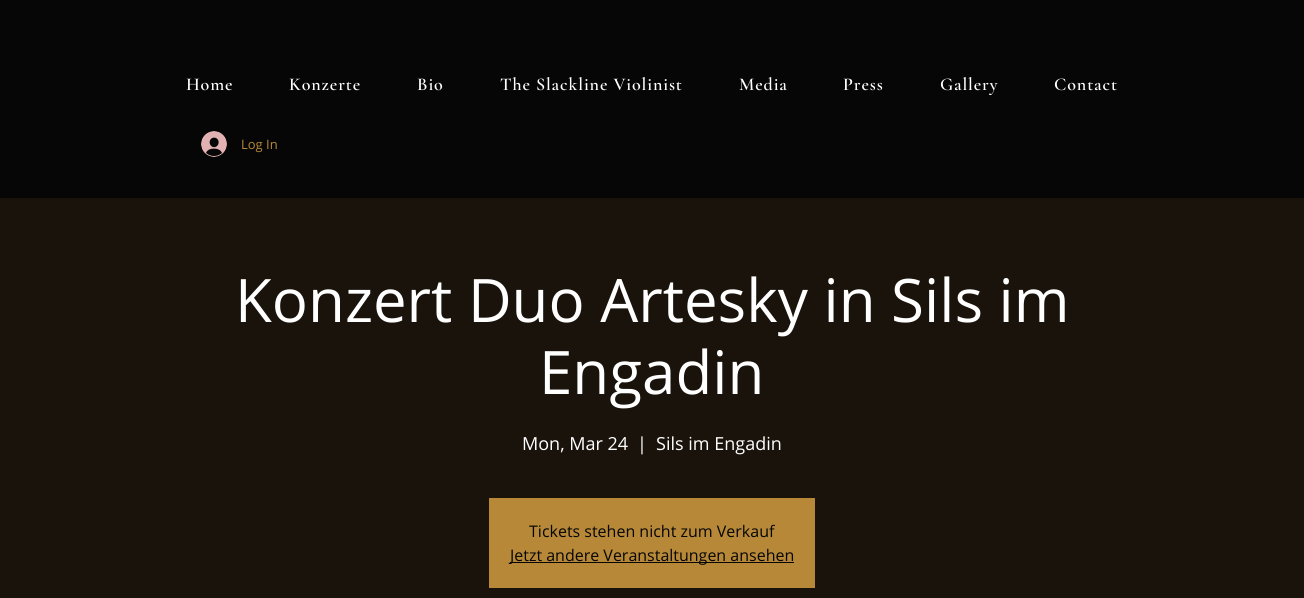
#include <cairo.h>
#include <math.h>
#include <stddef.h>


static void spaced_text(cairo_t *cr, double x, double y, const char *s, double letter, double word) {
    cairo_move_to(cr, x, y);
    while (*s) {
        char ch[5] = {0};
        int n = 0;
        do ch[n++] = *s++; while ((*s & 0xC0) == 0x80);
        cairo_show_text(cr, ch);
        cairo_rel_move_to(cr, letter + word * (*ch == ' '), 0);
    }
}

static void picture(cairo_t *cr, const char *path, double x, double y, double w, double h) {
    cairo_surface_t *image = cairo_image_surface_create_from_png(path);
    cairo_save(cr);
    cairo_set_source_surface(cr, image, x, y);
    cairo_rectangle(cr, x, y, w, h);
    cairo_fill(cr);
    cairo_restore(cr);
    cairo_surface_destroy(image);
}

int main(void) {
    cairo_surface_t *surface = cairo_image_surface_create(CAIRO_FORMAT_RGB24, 1304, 598);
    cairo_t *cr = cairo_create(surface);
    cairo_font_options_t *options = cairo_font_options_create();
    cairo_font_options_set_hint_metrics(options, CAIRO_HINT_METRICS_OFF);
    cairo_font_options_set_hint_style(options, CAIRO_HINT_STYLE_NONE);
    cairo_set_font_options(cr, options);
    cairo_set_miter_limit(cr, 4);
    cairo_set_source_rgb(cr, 0.027, 0.024, 0.024);
    cairo_paint(cr);
    cairo_select_font_face(cr, "Cormorant Garamond SemiBold", CAIRO_FONT_SLANT_NORMAL, CAIRO_FONT_WEIGHT_NORMAL);
    cairo_set_font_size(cr, 18);
    cairo_set_source_rgb(cr, 1, 1, 1);
    spaced_text(cr, 186, 90, "Home", 0.9, 0);
    spaced_text(cr, 289, 90, "Konzerte", 0.9, 0);
    spaced_text(cr, 417, 90, "Bio", 0.9, 0);
    spaced_text(cr, 500, 90, "The Slackline Violinist", 0.9, 0);
    spaced_text(cr, 739, 90, "Media", 0.9, 0);
    spaced_text(cr, 843, 90, "Press", 0.9, 0);
    spaced_text(cr, 940, 90, "Gallery", 0.9, 0);
    spaced_text(cr, 1054, 90, "Contact", 0.9, 0);
    picture(cr, "img1.png", 201, 131, 26, 26);
    cairo_select_font_face(cr, "Open Sans", CAIRO_FONT_SLANT_NORMAL, CAIRO_FONT_WEIGHT_NORMAL);
    cairo_set_font_size(cr, 13);
    cairo_set_source_rgb(cr, 0.718, 0.533, 0.216);
    cairo_move_to(cr, 241, 149);
    cairo_show_text(cr, "Log In");
    cairo_set_source_rgb(cr, 0.098, 0.075, 0.043);
    cairo_rectangle(cr, 0, 198, 1304, 400);
    cairo_fill(cr);
    cairo_set_font_size(cr, 60);
    cairo_set_source_rgb(cr, 1, 1, 1);
    cairo_move_to(cr, 235, 322);
    cairo_show_text(cr, "Konzert Duo Artesky in Sils im");
    cairo_move_to(cr, 539, 394);
    cairo_show_text(cr, "Engadin");
    cairo_set_font_size(cr, 18);
    cairo_move_to(cr, 522, 450);
    cairo_show_text(cr, "Mon, Mar 24");
    cairo_move_to(cr, 637, 450);
    cairo_show_text(cr, "|");
    cairo_move_to(cr, 656, 450);
    cairo_show_text(cr, "Sils im Engadin");
    cairo_set_source_rgb(cr, 0.718, 0.533, 0.216);
    cairo_rectangle(cr, 489, 498, 326, 90);
    cairo_fill(cr);
    cairo_set_font_size(cr, 16);
    cairo_set_source_rgb(cr, 0.027, 0.024, 0.024);
    cairo_move_to(cr, 529, 537);
    cairo_show_text(cr, "Tickets stehen nicht zum Verkauf");
    cairo_rectangle(cr, 510, 562, 284, 1);
    cairo_fill(cr);
    cairo_move_to(cr, 510, 561);
    cairo_show_text(cr, "Jetzt andere Veranstaltungen ansehen");
    cairo_surface_write_to_png(surface, "page.png");
    cairo_font_options_destroy(options);
    cairo_destroy(cr);
    cairo_surface_destroy(surface);
    return 0;
}
